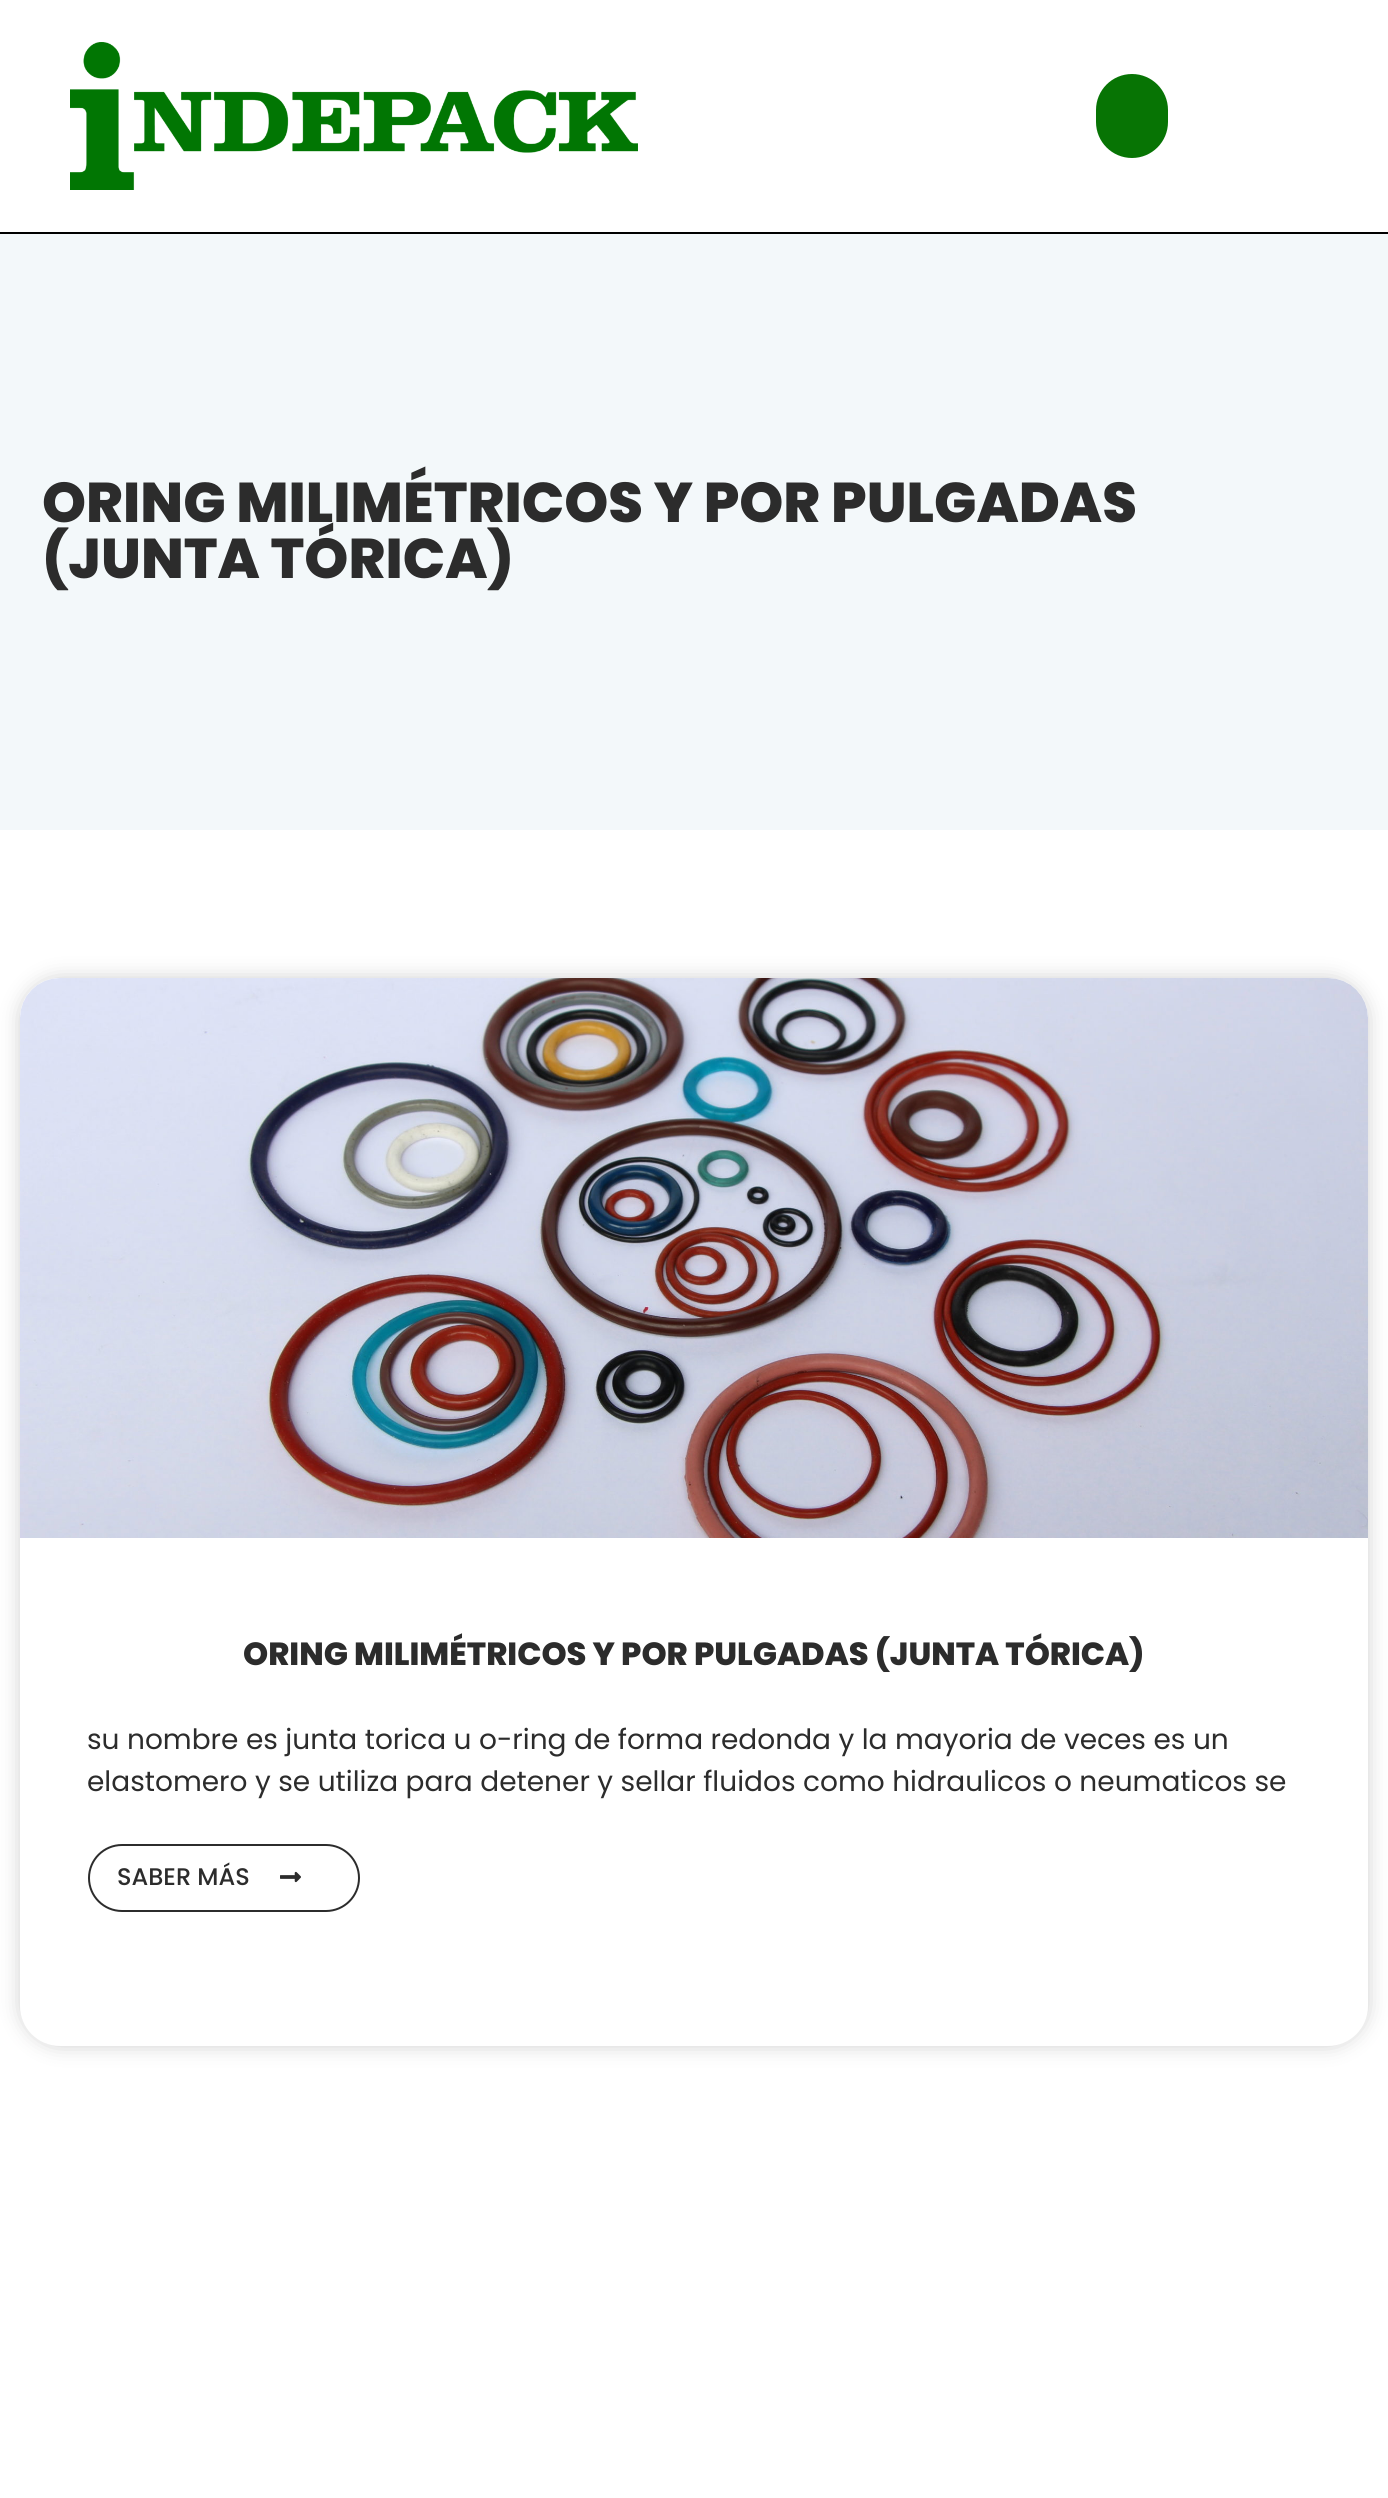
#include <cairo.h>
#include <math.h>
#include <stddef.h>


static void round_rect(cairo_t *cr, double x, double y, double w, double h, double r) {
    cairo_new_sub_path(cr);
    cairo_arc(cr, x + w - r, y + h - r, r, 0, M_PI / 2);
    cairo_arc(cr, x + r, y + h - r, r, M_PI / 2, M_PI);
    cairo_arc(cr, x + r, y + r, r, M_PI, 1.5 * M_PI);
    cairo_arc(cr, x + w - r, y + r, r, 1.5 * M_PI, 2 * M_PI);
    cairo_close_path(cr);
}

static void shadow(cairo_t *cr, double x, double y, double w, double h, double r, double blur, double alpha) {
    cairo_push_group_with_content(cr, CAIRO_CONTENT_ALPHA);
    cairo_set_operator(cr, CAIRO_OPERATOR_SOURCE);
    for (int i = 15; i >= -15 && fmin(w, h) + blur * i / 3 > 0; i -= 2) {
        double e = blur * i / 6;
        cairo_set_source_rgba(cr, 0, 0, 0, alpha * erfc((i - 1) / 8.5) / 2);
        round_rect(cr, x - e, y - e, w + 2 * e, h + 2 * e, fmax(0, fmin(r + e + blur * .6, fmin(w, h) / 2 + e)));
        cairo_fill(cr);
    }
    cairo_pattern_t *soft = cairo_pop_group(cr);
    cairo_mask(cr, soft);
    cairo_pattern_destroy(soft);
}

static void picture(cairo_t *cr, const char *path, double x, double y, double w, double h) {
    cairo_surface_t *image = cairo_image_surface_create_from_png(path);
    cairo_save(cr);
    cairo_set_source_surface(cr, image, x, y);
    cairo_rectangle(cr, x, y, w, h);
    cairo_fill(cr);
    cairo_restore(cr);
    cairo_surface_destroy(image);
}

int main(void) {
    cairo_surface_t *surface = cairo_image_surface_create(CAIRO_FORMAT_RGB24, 1388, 2498);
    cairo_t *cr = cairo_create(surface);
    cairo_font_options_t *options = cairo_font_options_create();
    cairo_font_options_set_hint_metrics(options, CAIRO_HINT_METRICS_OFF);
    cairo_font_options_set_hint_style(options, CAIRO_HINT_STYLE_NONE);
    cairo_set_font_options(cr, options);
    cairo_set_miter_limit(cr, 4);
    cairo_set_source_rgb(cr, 1, 1, 1);
    cairo_paint(cr);
    cairo_set_source_rgb(cr, 0, 0, 0);
    cairo_rectangle(cr, 0, 232, 1388, 2);
    cairo_fill(cr);
    picture(cr, "img1.png", 70, 42, 568, 148);
    cairo_set_source_rgb(cr, 0.031, 0.455, 0.016);
    round_rect(cr, 1096, 74, 72, 84, 36);
    cairo_fill(cr);
    cairo_set_source_rgb(cr, 0.953, 0.969, 0.98);
    cairo_rectangle(cr, 0, 234, 1388, 596);
    cairo_fill(cr);
    cairo_select_font_face(cr, "Poppins ExtraBold", CAIRO_FONT_SLANT_NORMAL, CAIRO_FONT_WEIGHT_NORMAL);
    cairo_set_font_size(cr, 56);
    cairo_set_source_rgb(cr, 0.173, 0.173, 0.173);
    cairo_move_to(cr, 42, 522);
    cairo_show_text(cr, "ORING MILIMÉTRICOS Y POR PULGADAS");
    cairo_move_to(cr, 42, 578);
    cairo_show_text(cr, "(JUNTA TÓRICA)");
    cairo_set_source_rgb(cr, 0, 0, 0);
    shadow(cr, 20, 978, 1348, 1068, 40, 10, 0.18);
    cairo_set_source_rgb(cr, 1, 1, 1);
    round_rect(cr, 20, 978, 1348, 1068, 40);
    cairo_fill(cr);
    picture(cr, "img2.png", 20, 978, 1348, 560);
    cairo_set_font_size(cr, 32);
    cairo_set_source_rgb(cr, 0.173, 0.173, 0.173);
    cairo_move_to(cr, 243, 1665);
    cairo_show_text(cr, "ORING MILIMÉTRICOS Y POR PULGADAS (JUNTA TÓRICA)");
    cairo_select_font_face(cr, "Poppins", CAIRO_FONT_SLANT_NORMAL, CAIRO_FONT_WEIGHT_NORMAL);
    cairo_set_font_size(cr, 28);
    cairo_move_to(cr, 87, 1749);
    cairo_show_text(cr, "su nombre es junta torica u o-ring de forma redonda y la mayoria de veces es un");
    cairo_move_to(cr, 87, 1791);
    cairo_show_text(cr, "elastomero y se utiliza para detener y sellar fluidos como hidraulicos o neumaticos se");
    round_rect(cr, 89, 1845, 270, 66, 33);
    cairo_stroke(cr);
    cairo_select_font_face(cr, "Poppins Medium", CAIRO_FONT_SLANT_NORMAL, CAIRO_FONT_WEIGHT_NORMAL);
    cairo_set_font_size(cr, 24);
    cairo_move_to(cr, 117, 1885);
    cairo_show_text(cr, "SABER MÁS");
    picture(cr, "img3.png", 280, 1871, 21, 12);
    cairo_surface_write_to_png(surface, "page.png");
    cairo_font_options_destroy(options);
    cairo_destroy(cr);
    cairo_surface_destroy(surface);
    return 0;
}
